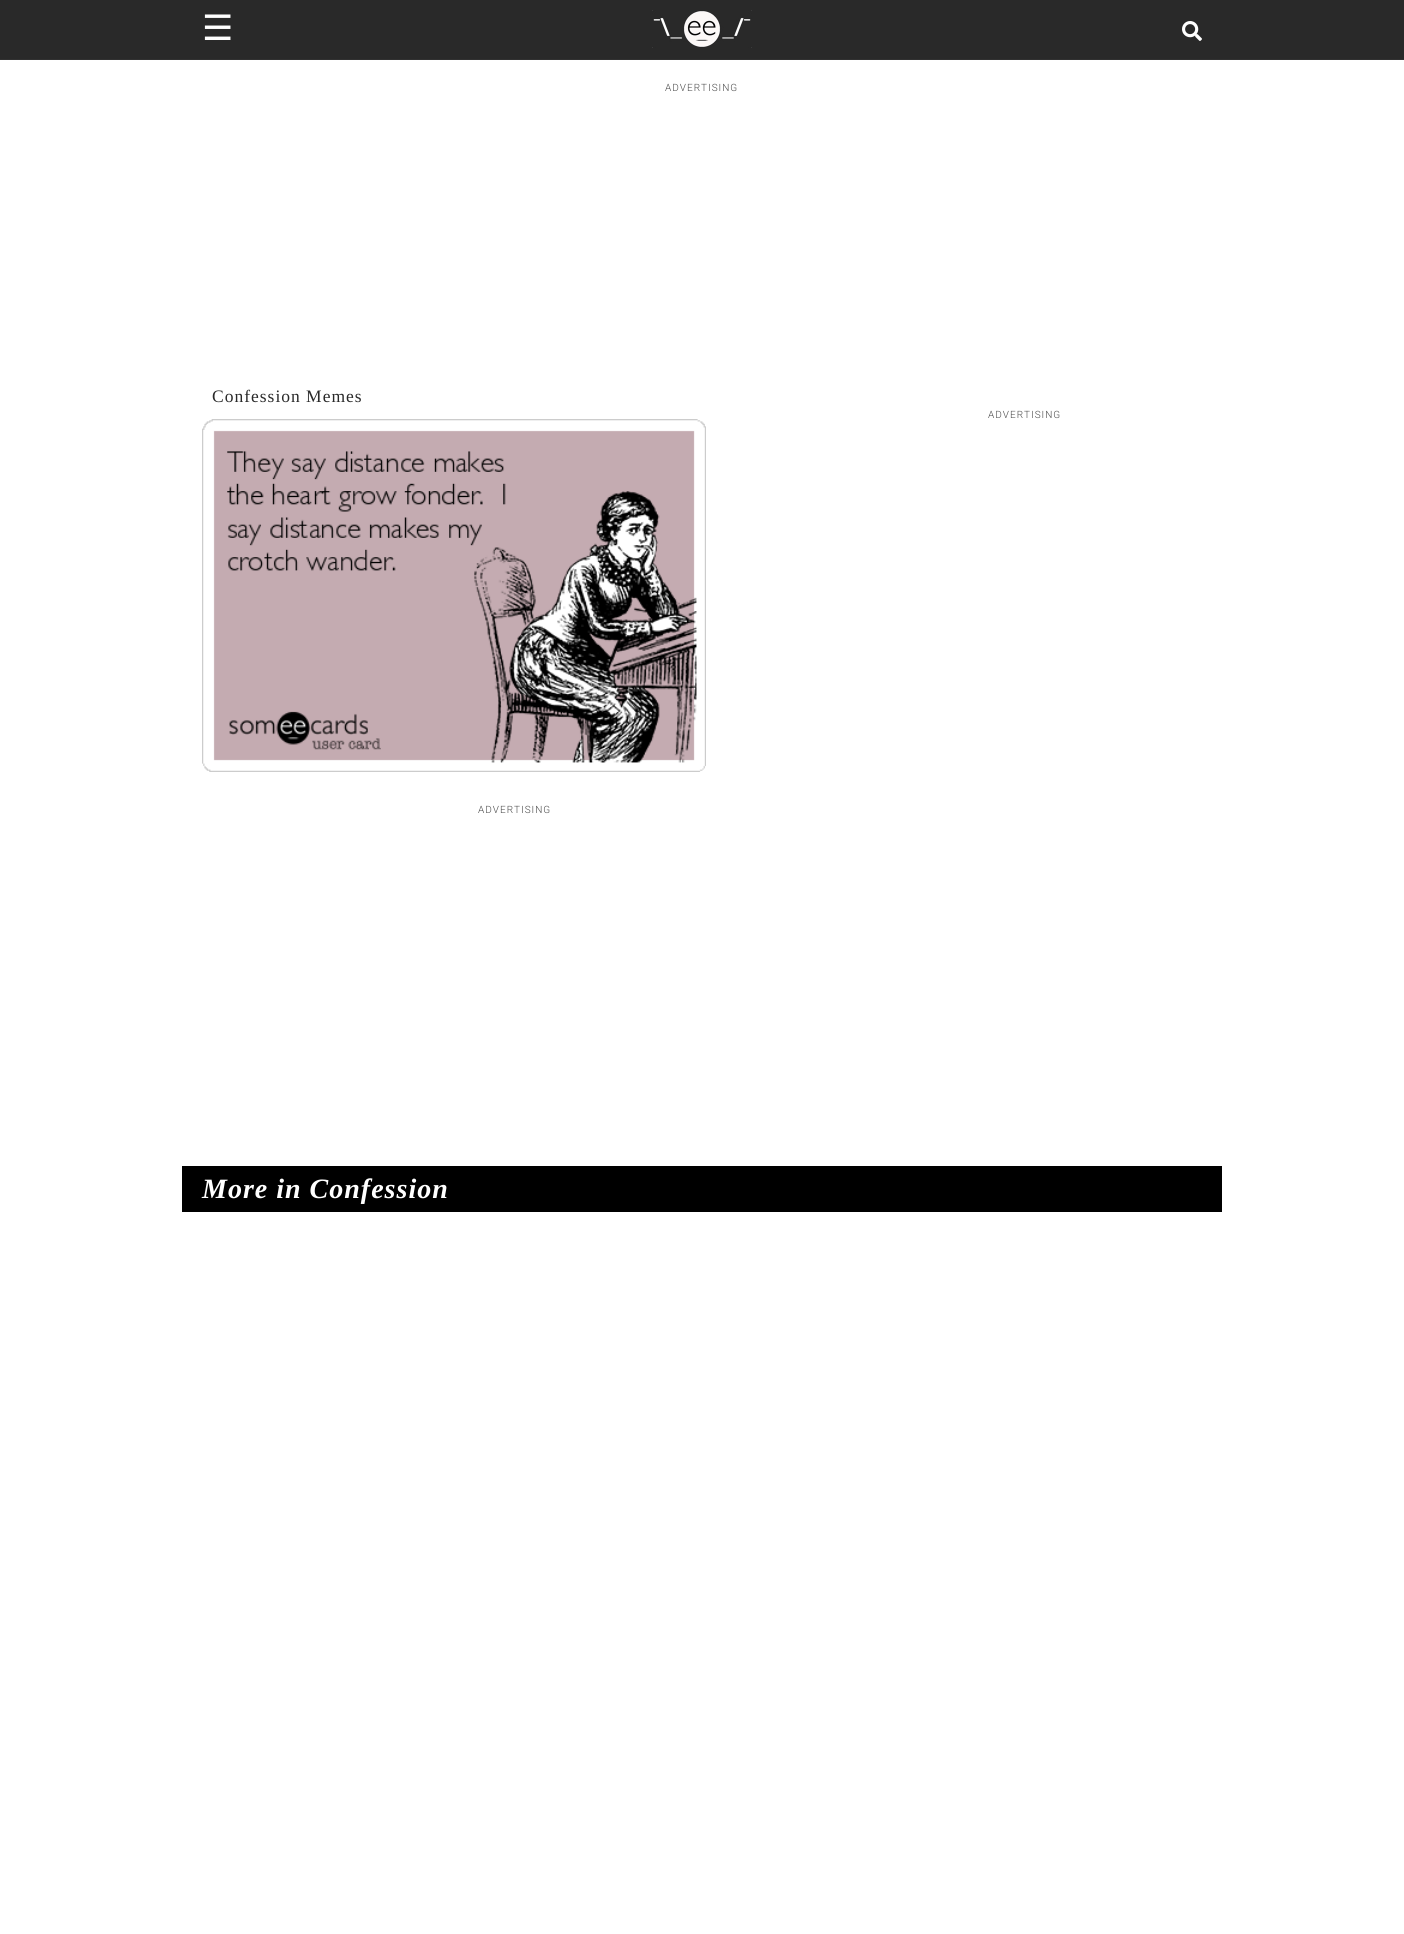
#include <cairo.h>
#include <math.h>
#include <stddef.h>


static void spaced_text(cairo_t *cr, double x, double y, const char *s, double letter, double word) {
    cairo_move_to(cr, x, y);
    while (*s) {
        char ch[5] = {0};
        int n = 0;
        do ch[n++] = *s++; while ((*s & 0xC0) == 0x80);
        cairo_show_text(cr, ch);
        cairo_rel_move_to(cr, letter + word * (*ch == ' '), 0);
    }
}

static void picture(cairo_t *cr, const char *path, double x, double y, double w, double h) {
    cairo_surface_t *image = cairo_image_surface_create_from_png(path);
    cairo_save(cr);
    cairo_set_source_surface(cr, image, x, y);
    cairo_rectangle(cr, x, y, w, h);
    cairo_fill(cr);
    cairo_restore(cr);
    cairo_surface_destroy(image);
}

int main(void) {
    cairo_surface_t *surface = cairo_image_surface_create(CAIRO_FORMAT_RGB24, 1404, 1934);
    cairo_t *cr = cairo_create(surface);
    cairo_font_options_t *options = cairo_font_options_create();
    cairo_font_options_set_hint_metrics(options, CAIRO_HINT_METRICS_OFF);
    cairo_font_options_set_hint_style(options, CAIRO_HINT_STYLE_NONE);
    cairo_set_font_options(cr, options);
    cairo_set_miter_limit(cr, 4);
    cairo_set_source_rgb(cr, 1, 1, 1);
    cairo_paint(cr);
    cairo_set_source_rgb(cr, 0.161, 0.161, 0.161);
    cairo_rectangle(cr, 0, 0, 1404, 59);
    cairo_fill(cr);
    cairo_set_source_rgb(cr, 0.192, 0.192, 0.192);
    cairo_rectangle(cr, 0, 59, 1404, 1);
    cairo_fill(cr);
    cairo_select_font_face(cr, "DejaVu Sans", CAIRO_FONT_SLANT_NORMAL, CAIRO_FONT_WEIGHT_NORMAL);
    cairo_set_font_size(cr, 35);
    cairo_set_source_rgb(cr, 1, 1, 1);
    cairo_move_to(cr, 202, 40);
    cairo_show_text(cr, "☰");
    picture(cr, "img1.png", 652, 10, 100, 38);
    picture(cr, "img2.png", 1182, 21, 20, 20);
    cairo_select_font_face(cr, "Roboto Light", CAIRO_FONT_SLANT_NORMAL, CAIRO_FONT_WEIGHT_NORMAL);
    cairo_set_font_size(cr, 10);
    cairo_set_source_rgb(cr, 0.29, 0.29, 0.29);
    spaced_text(cr, 665, 91, "ADVERTISING", 1, 0);
    cairo_select_font_face(cr, "Liberation Serif", CAIRO_FONT_SLANT_NORMAL, CAIRO_FONT_WEIGHT_NORMAL);
    cairo_set_font_size(cr, 17.5);
    cairo_set_source_rgb(cr, 0.161, 0.161, 0.161);
    spaced_text(cr, 212, 402, "Confession Memes", 1, 0);
    picture(cr, "img3.png", 202, 419, 504, 353);
    cairo_select_font_face(cr, "Roboto Light", CAIRO_FONT_SLANT_NORMAL, CAIRO_FONT_WEIGHT_NORMAL);
    cairo_set_font_size(cr, 10);
    cairo_set_source_rgb(cr, 0.29, 0.29, 0.29);
    spaced_text(cr, 478, 813, "ADVERTISING", 1, 0);
    spaced_text(cr, 988, 418, "ADVERTISING", 1, 0);
    cairo_set_source_rgb(cr, 0, 0, 0);
    cairo_rectangle(cr, 182, 1166, 1040, 46);
    cairo_fill(cr);
    cairo_select_font_face(cr, "Liberation Serif", CAIRO_FONT_SLANT_ITALIC, CAIRO_FONT_WEIGHT_BOLD);
    cairo_set_font_size(cr, 28);
    cairo_set_source_rgb(cr, 1, 1, 1);
    spaced_text(cr, 202, 1198, "More in Confession", 1, 0);
    cairo_surface_write_to_png(surface, "page.png");
    cairo_font_options_destroy(options);
    cairo_destroy(cr);
    cairo_surface_destroy(surface);
    return 0;
}
